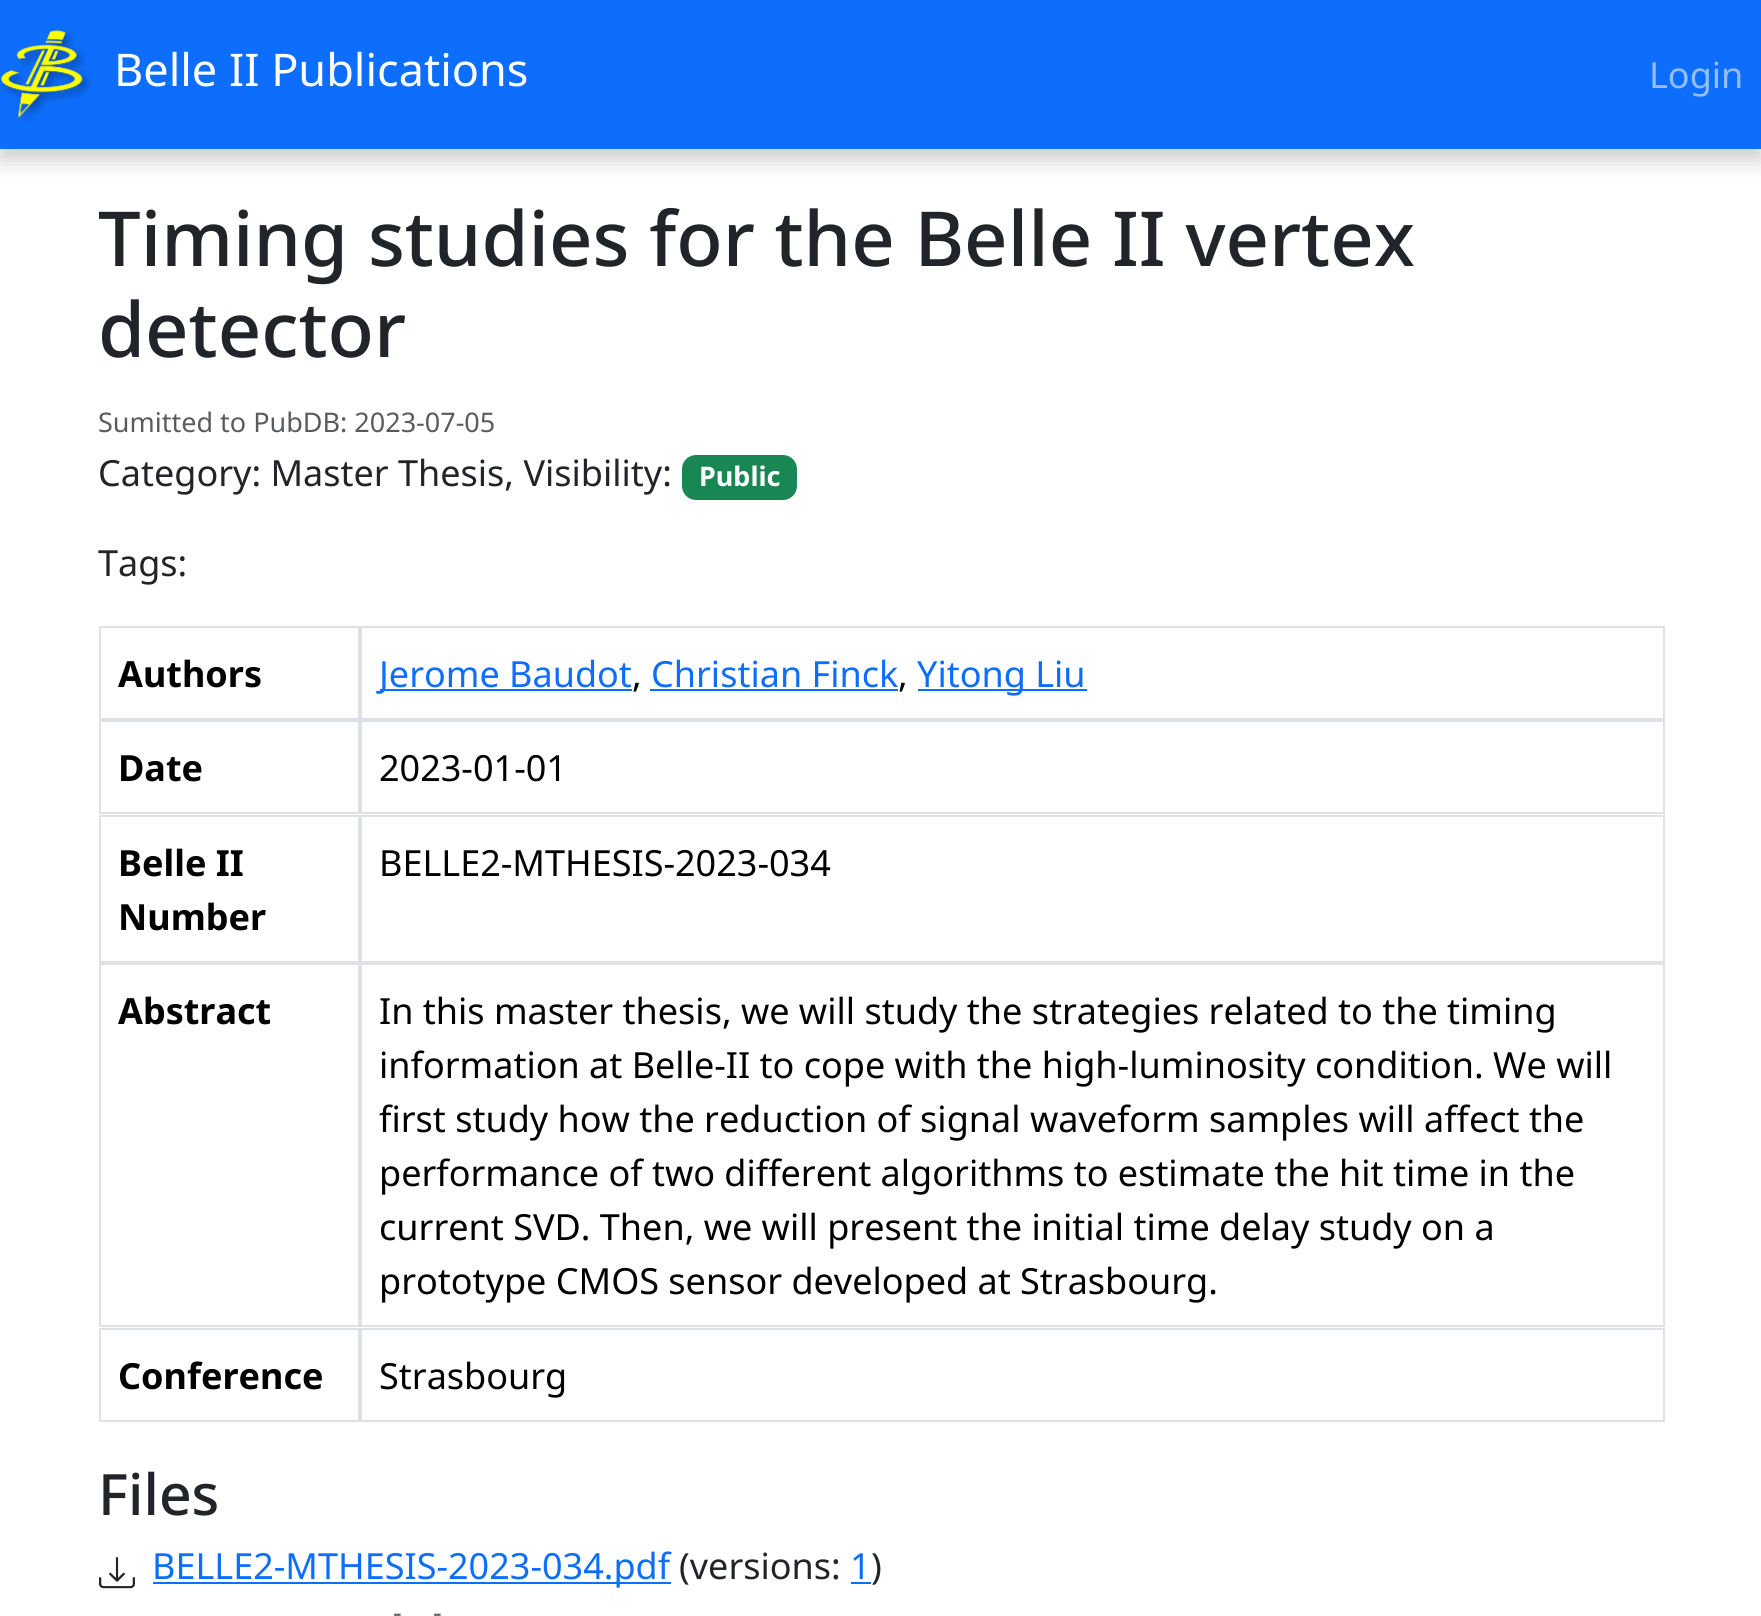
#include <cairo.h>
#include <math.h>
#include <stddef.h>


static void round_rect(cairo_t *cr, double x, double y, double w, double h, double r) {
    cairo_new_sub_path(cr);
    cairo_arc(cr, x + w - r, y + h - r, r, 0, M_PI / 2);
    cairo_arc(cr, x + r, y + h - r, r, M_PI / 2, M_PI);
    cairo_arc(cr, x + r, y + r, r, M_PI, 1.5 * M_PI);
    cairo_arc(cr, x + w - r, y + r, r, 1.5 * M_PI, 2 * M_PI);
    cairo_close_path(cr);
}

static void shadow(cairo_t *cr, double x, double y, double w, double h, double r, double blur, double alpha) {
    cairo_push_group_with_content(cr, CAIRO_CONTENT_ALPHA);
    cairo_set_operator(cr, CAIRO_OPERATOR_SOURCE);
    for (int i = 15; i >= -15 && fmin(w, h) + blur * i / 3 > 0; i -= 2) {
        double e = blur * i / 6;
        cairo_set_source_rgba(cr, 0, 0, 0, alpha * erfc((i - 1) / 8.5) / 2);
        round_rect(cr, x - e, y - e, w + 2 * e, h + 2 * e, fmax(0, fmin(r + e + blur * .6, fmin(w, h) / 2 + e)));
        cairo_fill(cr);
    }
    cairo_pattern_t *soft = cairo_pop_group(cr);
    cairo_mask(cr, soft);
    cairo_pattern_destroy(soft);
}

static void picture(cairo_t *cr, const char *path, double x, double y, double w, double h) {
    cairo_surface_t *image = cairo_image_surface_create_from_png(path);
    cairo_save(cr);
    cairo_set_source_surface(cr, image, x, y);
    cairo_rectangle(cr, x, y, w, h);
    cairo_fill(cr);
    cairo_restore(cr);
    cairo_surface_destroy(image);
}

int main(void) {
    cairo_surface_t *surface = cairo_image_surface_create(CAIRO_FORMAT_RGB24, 1761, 1616);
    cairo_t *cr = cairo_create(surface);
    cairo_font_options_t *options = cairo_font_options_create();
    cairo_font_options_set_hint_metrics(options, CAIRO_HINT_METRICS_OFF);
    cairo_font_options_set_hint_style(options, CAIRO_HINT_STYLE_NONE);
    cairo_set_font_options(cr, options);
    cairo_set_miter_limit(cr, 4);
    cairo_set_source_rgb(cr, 1, 1, 1);
    cairo_paint(cr);
    cairo_set_source_rgb(cr, 0.004, 0.004, 0.004);
    shadow(cr, 0, 11, 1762, 149, 0, 11, 0.2);
    cairo_set_source_rgb(cr, 0.051, 0.431, 0.992);
    cairo_rectangle(cr, 0, 0, 1761, 149);
    cairo_fill(cr);
    picture(cr, "img1.png", 0, 29, 92, 95);
    cairo_select_font_face(cr, "Noto Sans", CAIRO_FONT_SLANT_NORMAL, CAIRO_FONT_WEIGHT_NORMAL);
    cairo_set_font_size(cr, 45);
    cairo_set_source_rgb(cr, 1, 1, 1);
    cairo_move_to(cr, 114, 86);
    cairo_show_text(cr, "Belle II Publications");
    cairo_set_font_size(cr, 36);
    cairo_set_source_rgb(cr, 0.573, 0.745, 0.996);
    cairo_move_to(cr, 1649, 88);
    cairo_show_text(cr, "Login");
    cairo_select_font_face(cr, "Noto Sans Medium", CAIRO_FONT_SLANT_NORMAL, CAIRO_FONT_WEIGHT_NORMAL);
    cairo_set_font_size(cr, 75.9);
    cairo_set_source_rgb(cr, 0.129, 0.145, 0.161);
    cairo_move_to(cr, 98, 266);
    cairo_show_text(cr, "Timing studies for the Belle II vertex");
    cairo_move_to(cr, 98, 357);
    cairo_show_text(cr, "detector");
    cairo_select_font_face(cr, "Noto Sans", CAIRO_FONT_SLANT_NORMAL, CAIRO_FONT_WEIGHT_NORMAL);
    cairo_set_font_size(cr, 27);
    cairo_set_source_rgb(cr, 0.349, 0.361, 0.373);
    cairo_move_to(cr, 98, 432);
    cairo_show_text(cr, "Sumitted to PubDB: 2023-07-05");
    cairo_set_font_size(cr, 36);
    cairo_set_source_rgb(cr, 0.129, 0.145, 0.161);
    cairo_move_to(cr, 98, 486);
    cairo_show_text(cr, "Category: Master Thesis, Visibility:");
    cairo_set_source_rgb(cr, 0.098, 0.529, 0.329);
    round_rect(cr, 682, 455, 115, 45, 14);
    cairo_fill(cr);
    cairo_select_font_face(cr, "Noto Sans", CAIRO_FONT_SLANT_NORMAL, CAIRO_FONT_WEIGHT_BOLD);
    cairo_set_font_size(cr, 27);
    cairo_set_source_rgb(cr, 1, 1, 1);
    cairo_move_to(cr, 699, 486);
    cairo_show_text(cr, "Public");
    cairo_select_font_face(cr, "Noto Sans", CAIRO_FONT_SLANT_NORMAL, CAIRO_FONT_WEIGHT_NORMAL);
    cairo_set_font_size(cr, 36);
    cairo_set_source_rgb(cr, 0.129, 0.145, 0.161);
    cairo_move_to(cr, 98, 576);
    cairo_show_text(cr, "Tags:");
    cairo_set_source_rgb(cr, 0.871, 0.886, 0.902);
    cairo_rectangle(cr, 99, 626, 1566, 2);
    cairo_fill(cr);
    cairo_rectangle(cr, 99, 718, 1566, 4);
    cairo_fill(cr);
    cairo_rectangle(cr, 358, 628, 4, 90);
    cairo_fill(cr);
    cairo_rectangle(cr, 99, 628, 2, 90);
    cairo_fill(cr);
    cairo_select_font_face(cr, "Noto Sans", CAIRO_FONT_SLANT_NORMAL, CAIRO_FONT_WEIGHT_BOLD);
    cairo_set_source_rgb(cr, 0, 0, 0);
    cairo_move_to(cr, 118, 687);
    cairo_show_text(cr, "Authors");
    cairo_set_source_rgb(cr, 0.871, 0.886, 0.902);
    cairo_rectangle(cr, 1663, 628, 2, 90);
    cairo_fill(cr);
    cairo_set_source_rgb(cr, 0.051, 0.431, 0.992);
    cairo_rectangle(cr, 380, 689, 252, 2);
    cairo_fill(cr);
    cairo_select_font_face(cr, "Noto Sans", CAIRO_FONT_SLANT_NORMAL, CAIRO_FONT_WEIGHT_NORMAL);
    cairo_move_to(cr, 379, 687);
    cairo_show_text(cr, "Jerome Baudot");
    cairo_set_source_rgb(cr, 0, 0, 0);
    cairo_move_to(cr, 632, 687);
    cairo_show_text(cr, ",");
    cairo_set_source_rgb(cr, 0.051, 0.431, 0.992);
    cairo_move_to(cr, 651, 687);
    cairo_show_text(cr, "Christian Finck");
    cairo_rectangle(cr, 650, 689, 248, 2);
    cairo_fill(cr);
    cairo_set_source_rgb(cr, 0, 0, 0);
    cairo_move_to(cr, 898, 687);
    cairo_show_text(cr, ",");
    cairo_set_source_rgb(cr, 0.051, 0.431, 0.992);
    cairo_rectangle(cr, 918, 689, 169, 2);
    cairo_fill(cr);
    cairo_move_to(cr, 917, 687);
    cairo_show_text(cr, "Yitong Liu");
    cairo_set_source_rgb(cr, 0.871, 0.886, 0.902);
    cairo_rectangle(cr, 99, 812, 1566, 2);
    cairo_fill(cr);
    cairo_rectangle(cr, 358, 722, 4, 90);
    cairo_fill(cr);
    cairo_rectangle(cr, 99, 722, 2, 90);
    cairo_fill(cr);
    cairo_select_font_face(cr, "Noto Sans", CAIRO_FONT_SLANT_NORMAL, CAIRO_FONT_WEIGHT_BOLD);
    cairo_set_source_rgb(cr, 0, 0, 0);
    cairo_move_to(cr, 118, 781);
    cairo_show_text(cr, "Date");
    cairo_set_source_rgb(cr, 0.871, 0.886, 0.902);
    cairo_rectangle(cr, 1663, 722, 2, 90);
    cairo_fill(cr);
    cairo_select_font_face(cr, "Noto Sans", CAIRO_FONT_SLANT_NORMAL, CAIRO_FONT_WEIGHT_NORMAL);
    cairo_set_source_rgb(cr, 0, 0, 0);
    cairo_move_to(cr, 379, 781);
    cairo_show_text(cr, "2023-01-01");
    cairo_set_source_rgb(cr, 0.871, 0.886, 0.902);
    cairo_rectangle(cr, 99, 815, 1566, 2);
    cairo_fill(cr);
    cairo_rectangle(cr, 99, 961, 1566, 4);
    cairo_fill(cr);
    cairo_rectangle(cr, 358, 817, 4, 144);
    cairo_fill(cr);
    cairo_rectangle(cr, 99, 817, 2, 144);
    cairo_fill(cr);
    cairo_select_font_face(cr, "Noto Sans", CAIRO_FONT_SLANT_NORMAL, CAIRO_FONT_WEIGHT_BOLD);
    cairo_set_source_rgb(cr, 0, 0, 0);
    cairo_move_to(cr, 118, 876);
    cairo_show_text(cr, "Belle II");
    cairo_move_to(cr, 118, 930);
    cairo_show_text(cr, "Number");
    cairo_set_source_rgb(cr, 0.871, 0.886, 0.902);
    cairo_rectangle(cr, 1663, 817, 2, 144);
    cairo_fill(cr);
    cairo_select_font_face(cr, "Noto Sans", CAIRO_FONT_SLANT_NORMAL, CAIRO_FONT_WEIGHT_NORMAL);
    cairo_set_source_rgb(cr, 0, 0, 0);
    cairo_move_to(cr, 379, 876);
    cairo_show_text(cr, "BELLE2-MTHESIS-2023-034");
    cairo_set_source_rgb(cr, 0.871, 0.886, 0.902);
    cairo_rectangle(cr, 99, 1325, 1566, 2);
    cairo_fill(cr);
    cairo_rectangle(cr, 358, 965, 4, 360);
    cairo_fill(cr);
    cairo_rectangle(cr, 99, 965, 2, 360);
    cairo_fill(cr);
    cairo_select_font_face(cr, "Noto Sans", CAIRO_FONT_SLANT_NORMAL, CAIRO_FONT_WEIGHT_BOLD);
    cairo_set_source_rgb(cr, 0, 0, 0);
    cairo_move_to(cr, 118, 1024);
    cairo_show_text(cr, "Abstract");
    cairo_set_source_rgb(cr, 0.871, 0.886, 0.902);
    cairo_rectangle(cr, 1663, 965, 2, 360);
    cairo_fill(cr);
    cairo_select_font_face(cr, "Noto Sans", CAIRO_FONT_SLANT_NORMAL, CAIRO_FONT_WEIGHT_NORMAL);
    cairo_set_source_rgb(cr, 0, 0, 0);
    cairo_move_to(cr, 379, 1024);
    cairo_show_text(cr, "In this master thesis, we will study the strategies related to the timing");
    cairo_move_to(cr, 379, 1078);
    cairo_show_text(cr, "information at Belle-II to cope with the high-luminosity condition. We will");
    cairo_move_to(cr, 379, 1132);
    cairo_show_text(cr, "first study how the reduction of signal waveform samples will affect the");
    cairo_move_to(cr, 379, 1186);
    cairo_show_text(cr, "performance of two different algorithms to estimate the hit time in the");
    cairo_move_to(cr, 379, 1240);
    cairo_show_text(cr, "current SVD. Then, we will present the initial time delay study on a");
    cairo_move_to(cr, 379, 1294);
    cairo_show_text(cr, "prototype CMOS sensor developed at Strasbourg.");
    cairo_set_source_rgb(cr, 0.871, 0.886, 0.902);
    cairo_rectangle(cr, 99, 1328, 1566, 2);
    cairo_fill(cr);
    cairo_rectangle(cr, 99, 1420, 1566, 2);
    cairo_fill(cr);
    cairo_rectangle(cr, 358, 1330, 4, 90);
    cairo_fill(cr);
    cairo_rectangle(cr, 99, 1330, 2, 90);
    cairo_fill(cr);
    cairo_select_font_face(cr, "Noto Sans", CAIRO_FONT_SLANT_NORMAL, CAIRO_FONT_WEIGHT_BOLD);
    cairo_set_source_rgb(cr, 0, 0, 0);
    cairo_move_to(cr, 118, 1389);
    cairo_show_text(cr, "Conference");
    cairo_set_source_rgb(cr, 0.871, 0.886, 0.902);
    cairo_rectangle(cr, 1663, 1330, 2, 90);
    cairo_fill(cr);
    cairo_select_font_face(cr, "Noto Sans", CAIRO_FONT_SLANT_NORMAL, CAIRO_FONT_WEIGHT_NORMAL);
    cairo_set_source_rgb(cr, 0, 0, 0);
    cairo_move_to(cr, 379, 1389);
    cairo_show_text(cr, "Strasbourg");
    cairo_select_font_face(cr, "Noto Sans Medium", CAIRO_FONT_SLANT_NORMAL, CAIRO_FONT_WEIGHT_NORMAL);
    cairo_set_font_size(cr, 57);
    cairo_set_source_rgb(cr, 0.129, 0.145, 0.161);
    cairo_move_to(cr, 98, 1515);
    cairo_show_text(cr, "Files");
    picture(cr, "img2.png", 99, 1557, 36, 32);
    cairo_set_source_rgb(cr, 0.051, 0.431, 0.992);
    cairo_rectangle(cr, 153, 1582, 518, 2);
    cairo_fill(cr);
    cairo_select_font_face(cr, "Noto Sans", CAIRO_FONT_SLANT_NORMAL, CAIRO_FONT_WEIGHT_NORMAL);
    cairo_set_font_size(cr, 36);
    cairo_move_to(cr, 152, 1579);
    cairo_show_text(cr, "BELLE2-MTHESIS-2023-034.pdf");
    cairo_set_source_rgb(cr, 0.129, 0.145, 0.161);
    cairo_move_to(cr, 679, 1579);
    cairo_show_text(cr, "(versions:");
    cairo_set_source_rgb(cr, 0.051, 0.431, 0.992);
    cairo_move_to(cr, 850, 1579);
    cairo_show_text(cr, "1");
    cairo_rectangle(cr, 851, 1582, 20, 2);
    cairo_fill(cr);
    cairo_set_source_rgb(cr, 0.129, 0.145, 0.161);
    cairo_move_to(cr, 871, 1579);
    cairo_show_text(cr, ")");
    cairo_set_font_size(cr, 27);
    cairo_set_source_rgb(cr, 0.349, 0.361, 0.373);
    cairo_move_to(cr, 393, 1622);
    cairo_show_text(cr, "-");
    cairo_move_to(cr, 433, 1622);
    cairo_show_text(cr, "-");
    cairo_surface_write_to_png(surface, "page.png");
    cairo_font_options_destroy(options);
    cairo_destroy(cr);
    cairo_surface_destroy(surface);
    return 0;
}
